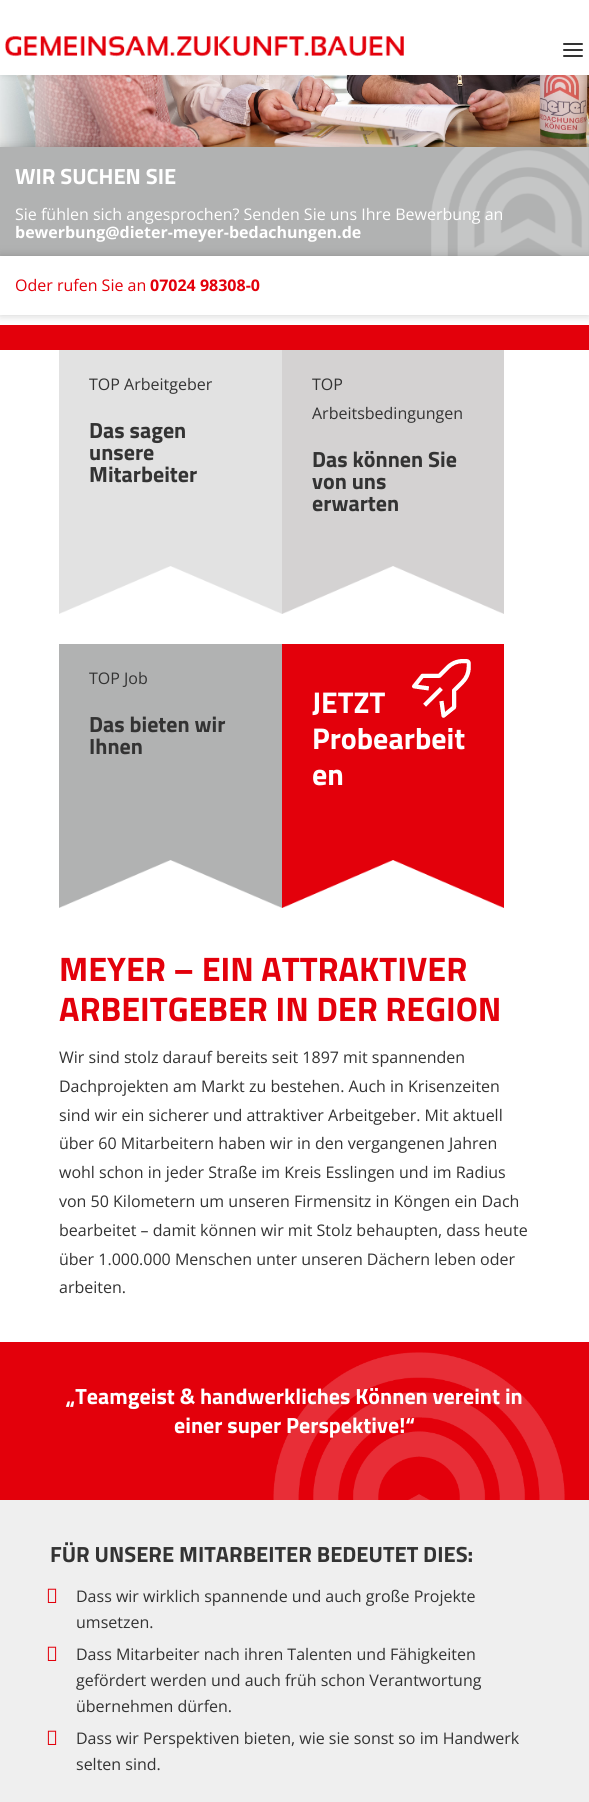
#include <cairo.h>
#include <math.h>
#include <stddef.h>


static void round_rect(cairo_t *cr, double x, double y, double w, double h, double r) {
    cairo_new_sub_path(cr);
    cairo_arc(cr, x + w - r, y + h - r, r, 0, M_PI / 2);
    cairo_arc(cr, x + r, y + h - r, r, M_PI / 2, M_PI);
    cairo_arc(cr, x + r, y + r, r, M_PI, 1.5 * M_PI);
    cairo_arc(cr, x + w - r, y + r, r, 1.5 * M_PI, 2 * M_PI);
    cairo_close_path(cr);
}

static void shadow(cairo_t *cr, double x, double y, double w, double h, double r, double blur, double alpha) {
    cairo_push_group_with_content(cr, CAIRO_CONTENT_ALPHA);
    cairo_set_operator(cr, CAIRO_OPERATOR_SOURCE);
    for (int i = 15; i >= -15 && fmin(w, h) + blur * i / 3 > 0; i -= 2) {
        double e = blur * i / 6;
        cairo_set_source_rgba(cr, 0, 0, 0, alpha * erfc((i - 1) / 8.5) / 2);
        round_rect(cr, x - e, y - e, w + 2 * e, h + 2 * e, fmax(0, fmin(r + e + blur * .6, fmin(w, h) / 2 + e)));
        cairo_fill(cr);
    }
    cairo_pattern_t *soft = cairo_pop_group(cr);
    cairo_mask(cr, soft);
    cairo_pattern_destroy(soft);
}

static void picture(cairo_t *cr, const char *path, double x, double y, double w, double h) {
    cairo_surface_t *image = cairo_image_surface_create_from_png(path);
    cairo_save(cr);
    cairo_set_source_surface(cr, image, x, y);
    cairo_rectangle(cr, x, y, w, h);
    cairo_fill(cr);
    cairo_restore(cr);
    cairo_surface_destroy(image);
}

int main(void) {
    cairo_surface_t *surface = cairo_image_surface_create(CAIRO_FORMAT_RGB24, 589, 1802);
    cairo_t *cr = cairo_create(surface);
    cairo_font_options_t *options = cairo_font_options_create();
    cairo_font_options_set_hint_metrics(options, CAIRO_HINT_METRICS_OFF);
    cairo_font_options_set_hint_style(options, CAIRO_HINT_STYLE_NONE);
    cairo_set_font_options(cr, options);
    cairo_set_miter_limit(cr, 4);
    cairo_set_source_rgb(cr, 1, 1, 1);
    cairo_paint(cr);
    picture(cr, "img3.png", 0, 75, 589, 72);
    cairo_set_source_rgb(cr, 0, 0, 0);
    shadow(cr, 0, 0, 589, 75, 0, 3.5, 0.1);
    cairo_set_source_rgb(cr, 1, 1, 1);
    cairo_rectangle(cr, 0, 0, 589, 75);
    cairo_fill(cr);
    picture(cr, "img1.png", 5, 36, 399, 21);
    picture(cr, "img2.png", 563, 43, 20, 14);
    cairo_set_source_rgb(cr, 0.89, 0, 0.043);
    cairo_rectangle(cr, 0, 325, 589, 25);
    cairo_fill(cr);
    cairo_set_source_rgb(cr, 0, 0, 0);
    shadow(cr, 0, 147, 589, 109, 0, 5, 0.2);
    cairo_set_source_rgb(cr, 0.694, 0.698, 0.698);
    cairo_rectangle(cr, 0, 147, 589, 109);
    cairo_fill(cr);
    picture(cr, "img4.png", 431, 147, 158, 109);
    cairo_select_font_face(cr, "Titillium Web", CAIRO_FONT_SLANT_NORMAL, CAIRO_FONT_WEIGHT_BOLD);
    cairo_set_font_size(cr, 22);
    cairo_set_source_rgb(cr, 1, 1, 1);
    cairo_move_to(cr, 15, 184);
    cairo_show_text(cr, "WIR SUCHEN SIE");
    cairo_select_font_face(cr, "Open Sans", CAIRO_FONT_SLANT_NORMAL, CAIRO_FONT_WEIGHT_NORMAL);
    cairo_set_font_size(cr, 16);
    cairo_move_to(cr, 15, 220);
    cairo_show_text(cr, "Sie fühlen sich angesprochen? Senden Sie uns Ihre Bewerbung an");
    cairo_set_source_rgb(cr, 0, 0, 0);
    shadow(cr, 0, 256, 589, 59, 0, 5, 0.2);
    cairo_select_font_face(cr, "Open Sans", CAIRO_FONT_SLANT_NORMAL, CAIRO_FONT_WEIGHT_BOLD);
    cairo_set_source_rgb(cr, 1, 1, 1);
    cairo_move_to(cr, 15, 238);
    cairo_show_text(cr, "bewerbung@dieter-meyer-bedachungen.de");
    cairo_rectangle(cr, 0, 256, 589, 59);
    cairo_fill(cr);
    cairo_select_font_face(cr, "Open Sans", CAIRO_FONT_SLANT_NORMAL, CAIRO_FONT_WEIGHT_NORMAL);
    cairo_set_source_rgb(cr, 0.89, 0, 0.043);
    cairo_move_to(cr, 15, 291);
    cairo_show_text(cr, "Oder rufen Sie an");
    cairo_select_font_face(cr, "Open Sans", CAIRO_FONT_SLANT_NORMAL, CAIRO_FONT_WEIGHT_BOLD);
    cairo_move_to(cr, 150, 291);
    cairo_show_text(cr, "07024 98308-0");
    cairo_set_source_rgb(cr, 0.886, 0.886, 0.886);
    cairo_rectangle(cr, 59, 350, 223, 264);
    cairo_fill(cr);
    picture(cr, "img5.png", 59, 566, 223, 48);
    cairo_select_font_face(cr, "Open Sans", CAIRO_FONT_SLANT_NORMAL, CAIRO_FONT_WEIGHT_NORMAL);
    cairo_set_source_rgb(cr, 0.2, 0.2, 0.2);
    cairo_move_to(cr, 89, 390);
    cairo_show_text(cr, "TOP Arbeitgeber");
    cairo_select_font_face(cr, "Titillium Web", CAIRO_FONT_SLANT_NORMAL, CAIRO_FONT_WEIGHT_BOLD);
    cairo_set_font_size(cr, 22);
    cairo_move_to(cr, 89, 438);
    cairo_show_text(cr, "Das sagen");
    cairo_move_to(cr, 89, 460);
    cairo_show_text(cr, "unsere");
    cairo_move_to(cr, 89, 482);
    cairo_show_text(cr, "Mitarbeiter");
    cairo_set_source_rgb(cr, 0.831, 0.824, 0.824);
    cairo_rectangle(cr, 282, 350, 222, 264);
    cairo_fill(cr);
    picture(cr, "img6.png", 282, 566, 222, 48);
    cairo_select_font_face(cr, "Open Sans", CAIRO_FONT_SLANT_NORMAL, CAIRO_FONT_WEIGHT_NORMAL);
    cairo_set_font_size(cr, 16);
    cairo_set_source_rgb(cr, 0.2, 0.2, 0.2);
    cairo_move_to(cr, 312, 390);
    cairo_show_text(cr, "TOP");
    cairo_move_to(cr, 312, 419);
    cairo_show_text(cr, "Arbeitsbedingungen");
    cairo_select_font_face(cr, "Titillium Web", CAIRO_FONT_SLANT_NORMAL, CAIRO_FONT_WEIGHT_BOLD);
    cairo_set_font_size(cr, 22);
    cairo_move_to(cr, 312, 467);
    cairo_show_text(cr, "Das können Sie");
    cairo_move_to(cr, 312, 489);
    cairo_show_text(cr, "von uns");
    cairo_move_to(cr, 312, 511);
    cairo_show_text(cr, "erwarten");
    cairo_set_source_rgb(cr, 0.694, 0.698, 0.698);
    cairo_rectangle(cr, 59, 644, 223, 264);
    cairo_fill(cr);
    picture(cr, "img7.png", 59, 860, 223, 48);
    cairo_select_font_face(cr, "Open Sans", CAIRO_FONT_SLANT_NORMAL, CAIRO_FONT_WEIGHT_NORMAL);
    cairo_set_font_size(cr, 16);
    cairo_set_source_rgb(cr, 0.2, 0.2, 0.2);
    cairo_move_to(cr, 89, 684);
    cairo_show_text(cr, "TOP Job");
    cairo_select_font_face(cr, "Titillium Web", CAIRO_FONT_SLANT_NORMAL, CAIRO_FONT_WEIGHT_BOLD);
    cairo_set_font_size(cr, 22);
    cairo_move_to(cr, 89, 732);
    cairo_show_text(cr, "Das bieten wir");
    cairo_move_to(cr, 89, 754);
    cairo_show_text(cr, "Ihnen");
    cairo_set_source_rgb(cr, 0.89, 0, 0.043);
    cairo_rectangle(cr, 282, 644, 222, 264);
    cairo_fill(cr);
    picture(cr, "img8.png", 282, 860, 222, 48);
    picture(cr, "img9.png", 412, 659, 59, 59);
    cairo_set_font_size(cr, 30);
    cairo_set_source_rgb(cr, 1, 1, 1);
    cairo_move_to(cr, 312, 713);
    cairo_show_text(cr, "JETZT");
    cairo_move_to(cr, 312, 749);
    cairo_show_text(cr, "Probearbeit");
    cairo_move_to(cr, 312, 785);
    cairo_show_text(cr, "en");
    cairo_set_font_size(cr, 34);
    cairo_set_source_rgb(cr, 0.89, 0, 0.043);
    cairo_move_to(cr, 59, 981);
    cairo_show_text(cr, "MEYER – EIN ATTRAKTIVER");
    cairo_move_to(cr, 59, 1021);
    cairo_show_text(cr, "ARBEITGEBER IN DER REGION");
    cairo_select_font_face(cr, "Open Sans", CAIRO_FONT_SLANT_NORMAL, CAIRO_FONT_WEIGHT_NORMAL);
    cairo_set_font_size(cr, 16);
    cairo_set_source_rgb(cr, 0.2, 0.2, 0.2);
    cairo_move_to(cr, 59, 1063);
    cairo_show_text(cr, "Wir sind stolz darauf bereits seit 1897 mit spannenden");
    cairo_move_to(cr, 59, 1092);
    cairo_show_text(cr, "Dachprojekten am Markt zu bestehen. Auch in Krisenzeiten");
    cairo_move_to(cr, 59, 1121);
    cairo_show_text(cr, "sind wir ein sicherer und attraktiver Arbeitgeber. Mit aktuell");
    cairo_move_to(cr, 59, 1149);
    cairo_show_text(cr, "über 60 Mitarbeitern haben wir in den vergangenen Jahren");
    cairo_move_to(cr, 59, 1178);
    cairo_show_text(cr, "wohl schon in jeder Straße im Kreis Esslingen und im Radius");
    cairo_move_to(cr, 59, 1207);
    cairo_show_text(cr, "von 50 Kilometern um unseren Firmensitz in Köngen ein Dach");
    cairo_move_to(cr, 59, 1236);
    cairo_show_text(cr, "bearbeitet – damit können wir mit Stolz behaupten, dass heute");
    cairo_move_to(cr, 59, 1265);
    cairo_show_text(cr, "über 1.000.000 Menschen unter unseren Dächern leben oder");
    cairo_move_to(cr, 59, 1293);
    cairo_show_text(cr, "arbeiten.");
    cairo_set_source_rgb(cr, 0.937, 0.937, 0.937);
    cairo_rectangle(cr, 0, 1500, 589, 302);
    cairo_fill(cr);
    cairo_set_source_rgb(cr, 0.89, 0, 0.043);
    cairo_rectangle(cr, 0, 1342, 589, 158);
    cairo_fill(cr);
    picture(cr, "img10.png", 273, 1352, 292, 148);
    cairo_select_font_face(cr, "Titillium Web", CAIRO_FONT_SLANT_NORMAL, CAIRO_FONT_WEIGHT_BOLD);
    cairo_set_font_size(cr, 22);
    cairo_set_source_rgb(cr, 1, 1, 1);
    cairo_move_to(cr, 66, 1404);
    cairo_show_text(cr, "„Teamgeist & handwerkliches Können vereint in");
    cairo_move_to(cr, 174, 1433);
    cairo_show_text(cr, "einer super Perspektive!“");
    cairo_set_source_rgb(cr, 0.2, 0.2, 0.2);
    cairo_move_to(cr, 50, 1562);
    cairo_show_text(cr, "FÜR UNSERE MITARBEITER BEDEUTET DIES:");
    picture(cr, "img11.png", 47, 1588, 10, 15);
    cairo_select_font_face(cr, "Open Sans", CAIRO_FONT_SLANT_NORMAL, CAIRO_FONT_WEIGHT_NORMAL);
    cairo_set_font_size(cr, 16);
    cairo_move_to(cr, 76, 1602);
    cairo_show_text(cr, "Dass wir wirklich spannende und auch große Projekte");
    cairo_move_to(cr, 76, 1628);
    cairo_show_text(cr, "umsetzen.");
    picture(cr, "img11.png", 47, 1646, 10, 15);
    cairo_move_to(cr, 76, 1660);
    cairo_show_text(cr, "Dass Mitarbeiter nach ihren Talenten und Fähigkeiten");
    cairo_move_to(cr, 76, 1686);
    cairo_show_text(cr, "gefördert werden und auch früh schon Verantwortung");
    cairo_move_to(cr, 76, 1712);
    cairo_show_text(cr, "übernehmen dürfen.");
    picture(cr, "img11.png", 47, 1730, 10, 15);
    cairo_move_to(cr, 76, 1744);
    cairo_show_text(cr, "Dass wir Perspektiven bieten, wie sie sonst so im Handwerk");
    cairo_move_to(cr, 76, 1770);
    cairo_show_text(cr, "selten sind.");
    cairo_surface_write_to_png(surface, "page.png");
    cairo_font_options_destroy(options);
    cairo_destroy(cr);
    cairo_surface_destroy(surface);
    return 0;
}
